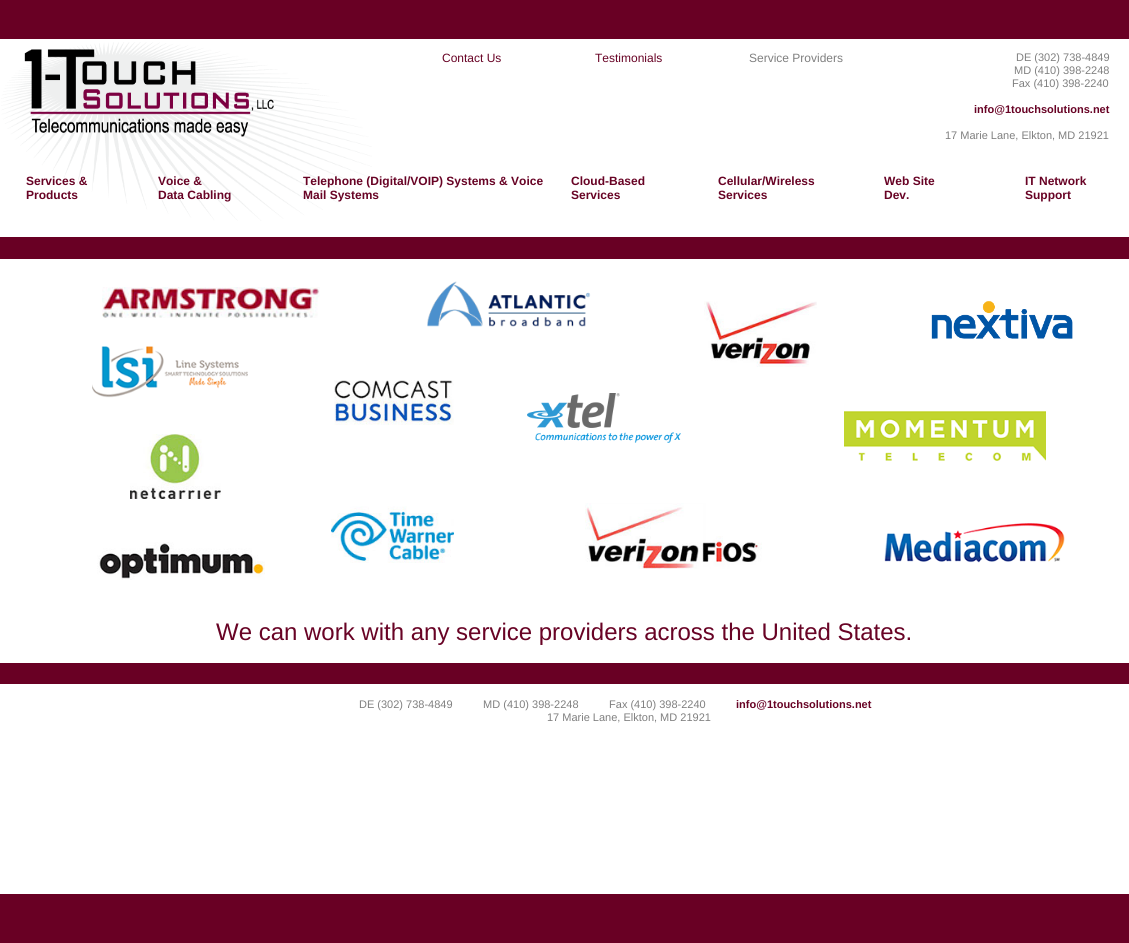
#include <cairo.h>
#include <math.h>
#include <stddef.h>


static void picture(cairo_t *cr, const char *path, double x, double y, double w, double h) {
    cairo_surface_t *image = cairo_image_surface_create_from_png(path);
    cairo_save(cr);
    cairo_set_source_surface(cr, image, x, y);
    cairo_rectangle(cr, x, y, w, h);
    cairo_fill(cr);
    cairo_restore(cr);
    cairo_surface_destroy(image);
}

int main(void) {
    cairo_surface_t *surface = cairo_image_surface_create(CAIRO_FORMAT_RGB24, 1129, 943);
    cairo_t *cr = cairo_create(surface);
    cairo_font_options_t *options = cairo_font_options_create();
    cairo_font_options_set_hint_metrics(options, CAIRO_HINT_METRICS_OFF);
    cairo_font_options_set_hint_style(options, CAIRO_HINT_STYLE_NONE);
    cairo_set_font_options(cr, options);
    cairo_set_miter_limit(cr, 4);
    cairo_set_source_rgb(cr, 1, 1, 1);
    cairo_paint(cr);
    cairo_set_source_rgb(cr, 0.412, 0, 0.141);
    cairo_rectangle(cr, 0, 0, 1129, 39);
    cairo_fill(cr);
    picture(cr, "img1.png", 1, 42, 371, 179);
    cairo_select_font_face(cr, "Liberation Sans", CAIRO_FONT_SLANT_NORMAL, CAIRO_FONT_WEIGHT_NORMAL);
    cairo_set_font_size(cr, 12);
    cairo_set_source_rgb(cr, 0.408, 0.012, 0.145);
    cairo_move_to(cr, 442, 62);
    cairo_show_text(cr, "Contact Us");
    cairo_select_font_face(cr, "Liberation Sans", CAIRO_FONT_SLANT_NORMAL, CAIRO_FONT_WEIGHT_BOLD);
    cairo_move_to(cr, 303, 185);
    cairo_show_text(cr, "Telephone (Digital/VOIP) Systems & Voice");
    cairo_move_to(cr, 303, 199);
    cairo_show_text(cr, "Mail Systems");
    cairo_select_font_face(cr, "Liberation Sans", CAIRO_FONT_SLANT_NORMAL, CAIRO_FONT_WEIGHT_NORMAL);
    cairo_move_to(cr, 595, 62);
    cairo_show_text(cr, "Testimonials");
    cairo_set_source_rgb(cr, 0.498, 0.498, 0.498);
    cairo_move_to(cr, 749, 62);
    cairo_show_text(cr, "Service Providers");
    cairo_select_font_face(cr, "Liberation Sans", CAIRO_FONT_SLANT_NORMAL, CAIRO_FONT_WEIGHT_BOLD);
    cairo_set_source_rgb(cr, 0.408, 0.012, 0.145);
    cairo_move_to(cr, 571, 185);
    cairo_show_text(cr, "Cloud-Based");
    cairo_move_to(cr, 571, 199);
    cairo_show_text(cr, "Services");
    cairo_move_to(cr, 718, 185);
    cairo_show_text(cr, "Cellular/Wireless");
    cairo_move_to(cr, 718, 199);
    cairo_show_text(cr, "Services");
    cairo_select_font_face(cr, "Liberation Sans", CAIRO_FONT_SLANT_NORMAL, CAIRO_FONT_WEIGHT_NORMAL);
    cairo_set_font_size(cr, 11);
    cairo_set_source_rgb(cr, 0.498, 0.498, 0.498);
    cairo_move_to(cr, 1016, 61);
    cairo_show_text(cr, "DE (302) 738-4849");
    cairo_move_to(cr, 1014, 74);
    cairo_show_text(cr, "MD (410) 398-2248");
    cairo_move_to(cr, 1012, 87);
    cairo_show_text(cr, "Fax (410) 398-2240");
    cairo_select_font_face(cr, "Liberation Sans", CAIRO_FONT_SLANT_NORMAL, CAIRO_FONT_WEIGHT_BOLD);
    cairo_set_source_rgb(cr, 0.408, 0.012, 0.145);
    cairo_move_to(cr, 974, 113);
    cairo_show_text(cr, "info@1touchsolutions.net");
    cairo_select_font_face(cr, "Liberation Sans", CAIRO_FONT_SLANT_NORMAL, CAIRO_FONT_WEIGHT_NORMAL);
    cairo_set_source_rgb(cr, 0.498, 0.498, 0.498);
    cairo_move_to(cr, 945, 139);
    cairo_show_text(cr, "17 Marie Lane, Elkton, MD 21921");
    cairo_select_font_face(cr, "Liberation Sans", CAIRO_FONT_SLANT_NORMAL, CAIRO_FONT_WEIGHT_BOLD);
    cairo_set_font_size(cr, 12);
    cairo_set_source_rgb(cr, 0.408, 0.012, 0.145);
    cairo_move_to(cr, 26, 185);
    cairo_show_text(cr, "Services &");
    cairo_move_to(cr, 26, 199);
    cairo_show_text(cr, "Products");
    cairo_move_to(cr, 158, 185);
    cairo_show_text(cr, "Voice &");
    cairo_move_to(cr, 158, 199);
    cairo_show_text(cr, "Data Cabling");
    cairo_move_to(cr, 884, 185);
    cairo_show_text(cr, "Web Site");
    cairo_move_to(cr, 884, 199);
    cairo_show_text(cr, "Dev.");
    cairo_move_to(cr, 1025, 185);
    cairo_show_text(cr, "IT Network");
    cairo_move_to(cr, 1025, 199);
    cairo_show_text(cr, "Support");
    cairo_set_source_rgb(cr, 0.412, 0, 0.141);
    cairo_rectangle(cr, 0, 237, 1129, 22);
    cairo_fill(cr);
    picture(cr, "img2.png", 102, 287, 218, 31);
    picture(cr, "img3.png", 92, 346, 156, 52);
    picture(cr, "img4.png", 130, 434, 91, 65);
    picture(cr, "img5.png", 97, 542, 168, 38);
    picture(cr, "img6.png", 427, 281, 164, 46);
    picture(cr, "img7.png", 334, 380, 120, 45);
    picture(cr, "img8.png", 527, 393, 154, 50);
    picture(cr, "img9.png", 704, 301, 113, 66);
    picture(cr, "img10.png", 331, 506, 123, 57);
    picture(cr, "img11.png", 585, 503, 177, 66);
    picture(cr, "img12.png", 931, 301, 142, 38);
    picture(cr, "img13.png", 844, 411, 202, 50);
    picture(cr, "img14.png", 884, 523, 181, 40);
    cairo_select_font_face(cr, "Liberation Sans", CAIRO_FONT_SLANT_NORMAL, CAIRO_FONT_WEIGHT_NORMAL);
    cairo_set_font_size(cr, 24);
    cairo_set_source_rgb(cr, 0.408, 0.012, 0.145);
    cairo_move_to(cr, 216, 640);
    cairo_show_text(cr, "We can work with any service providers across the United States.");
    cairo_set_source_rgb(cr, 0.412, 0, 0.141);
    cairo_rectangle(cr, 0, 663, 1129, 21);
    cairo_fill(cr);
    cairo_set_font_size(cr, 11);
    cairo_set_source_rgb(cr, 0.498, 0.498, 0.498);
    cairo_move_to(cr, 359, 708);
    cairo_show_text(cr, "DE (302) 738-4849          MD (410) 398-2248          Fax (410) 398-2240");
    cairo_select_font_face(cr, "Liberation Sans", CAIRO_FONT_SLANT_NORMAL, CAIRO_FONT_WEIGHT_BOLD);
    cairo_set_source_rgb(cr, 0.408, 0.012, 0.145);
    cairo_move_to(cr, 736, 708);
    cairo_show_text(cr, "info@1touchsolutions.net");
    cairo_select_font_face(cr, "Liberation Sans", CAIRO_FONT_SLANT_NORMAL, CAIRO_FONT_WEIGHT_NORMAL);
    cairo_set_source_rgb(cr, 0.498, 0.498, 0.498);
    cairo_move_to(cr, 547, 721);
    cairo_show_text(cr, "17 Marie Lane, Elkton, MD 21921");
    cairo_set_source_rgb(cr, 0.412, 0, 0.141);
    cairo_rectangle(cr, 0, 894, 1129, 49);
    cairo_fill(cr);
    cairo_surface_write_to_png(surface, "page.png");
    cairo_font_options_destroy(options);
    cairo_destroy(cr);
    cairo_surface_destroy(surface);
    return 0;
}
